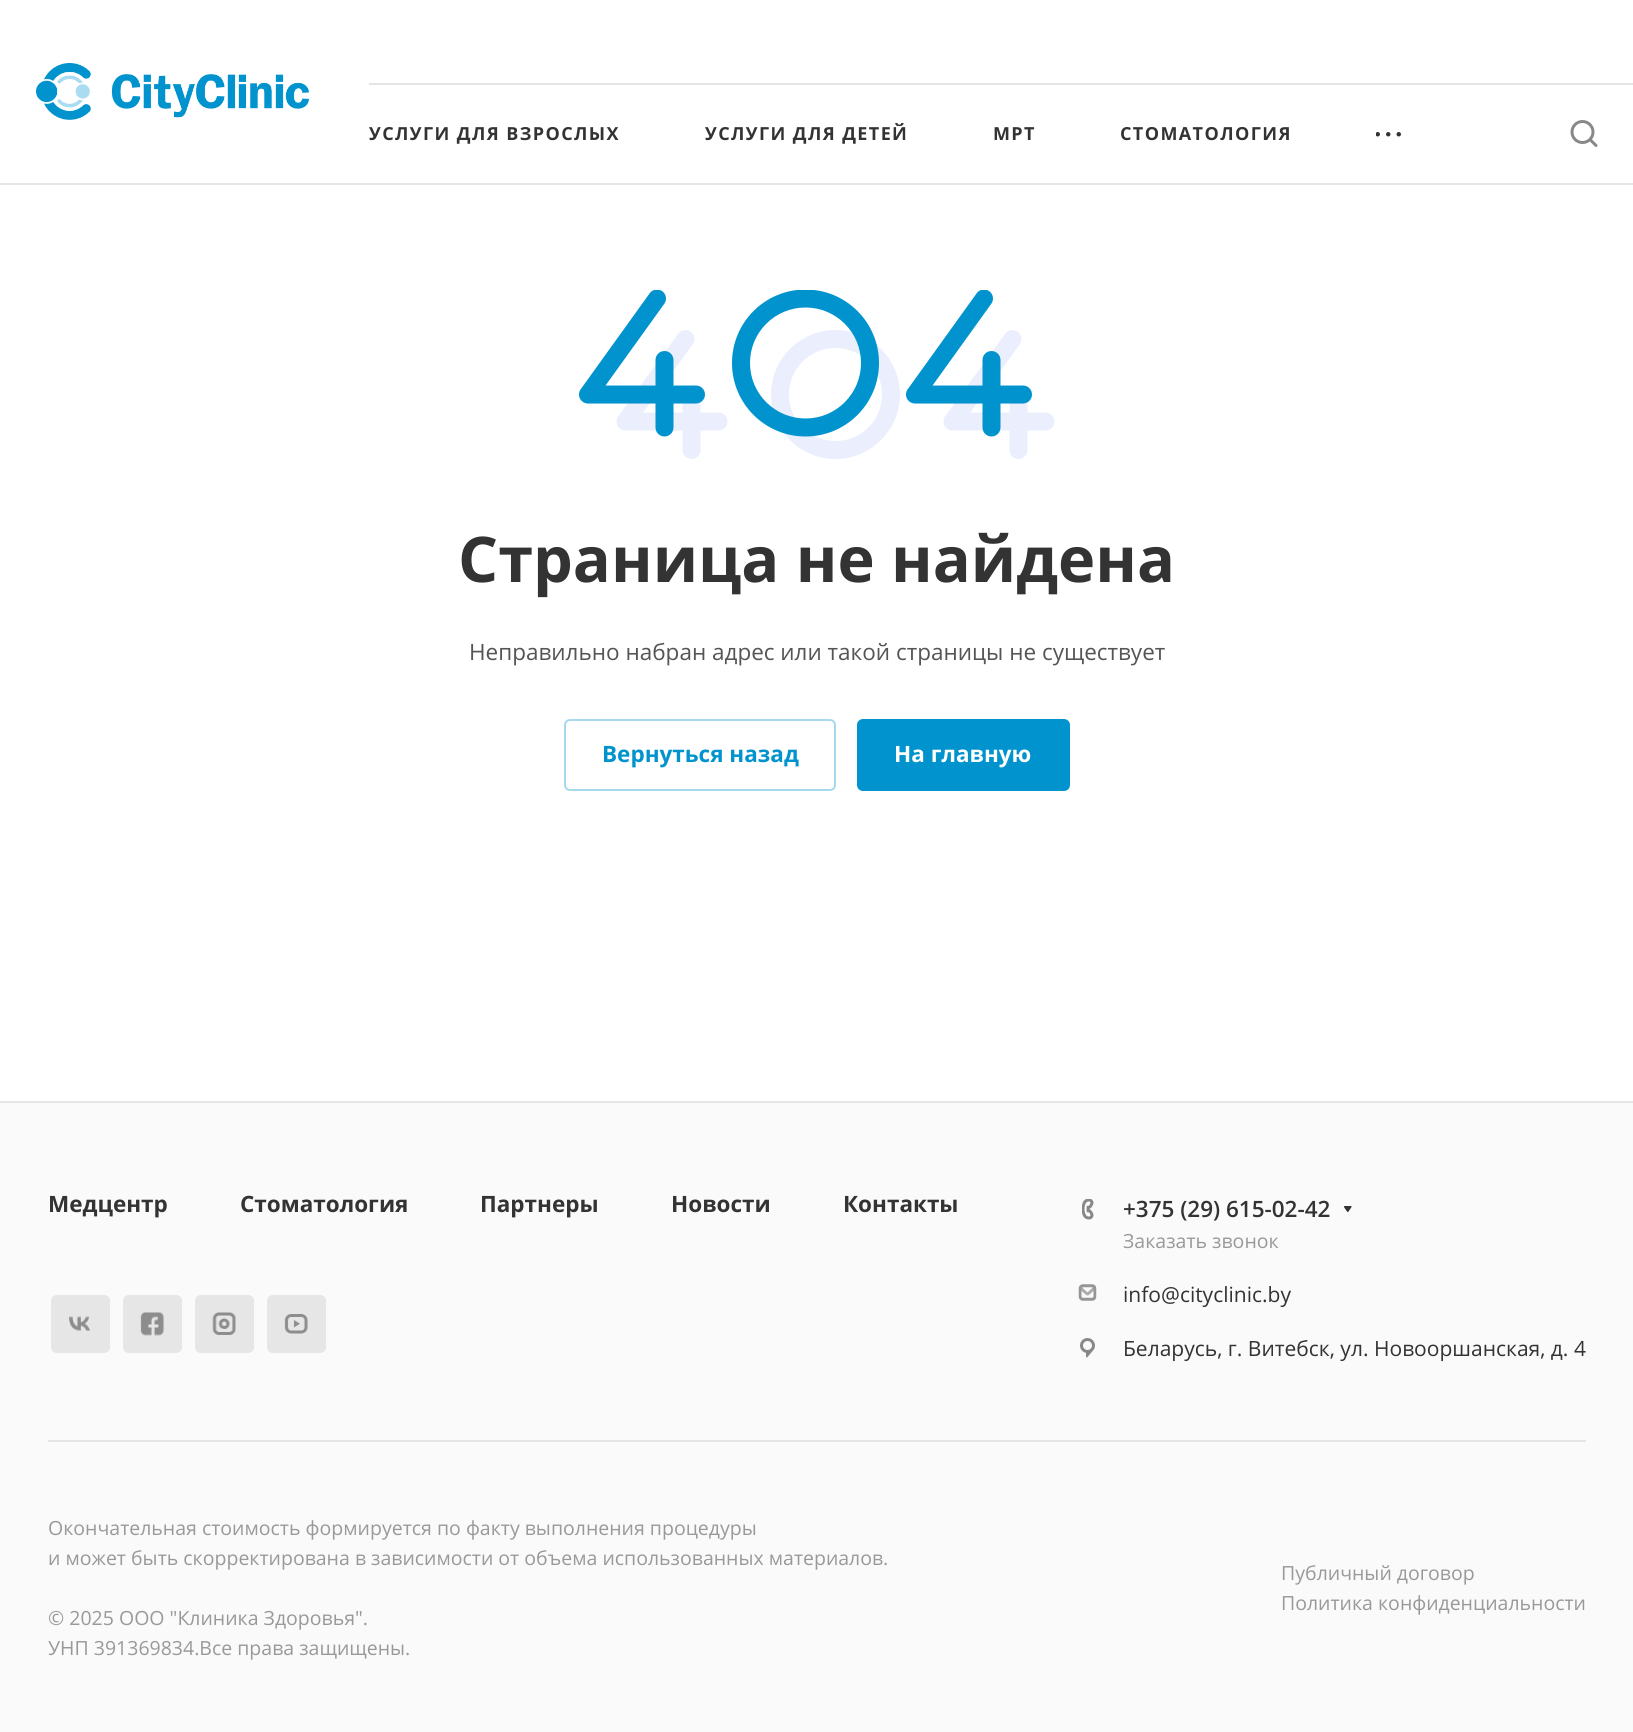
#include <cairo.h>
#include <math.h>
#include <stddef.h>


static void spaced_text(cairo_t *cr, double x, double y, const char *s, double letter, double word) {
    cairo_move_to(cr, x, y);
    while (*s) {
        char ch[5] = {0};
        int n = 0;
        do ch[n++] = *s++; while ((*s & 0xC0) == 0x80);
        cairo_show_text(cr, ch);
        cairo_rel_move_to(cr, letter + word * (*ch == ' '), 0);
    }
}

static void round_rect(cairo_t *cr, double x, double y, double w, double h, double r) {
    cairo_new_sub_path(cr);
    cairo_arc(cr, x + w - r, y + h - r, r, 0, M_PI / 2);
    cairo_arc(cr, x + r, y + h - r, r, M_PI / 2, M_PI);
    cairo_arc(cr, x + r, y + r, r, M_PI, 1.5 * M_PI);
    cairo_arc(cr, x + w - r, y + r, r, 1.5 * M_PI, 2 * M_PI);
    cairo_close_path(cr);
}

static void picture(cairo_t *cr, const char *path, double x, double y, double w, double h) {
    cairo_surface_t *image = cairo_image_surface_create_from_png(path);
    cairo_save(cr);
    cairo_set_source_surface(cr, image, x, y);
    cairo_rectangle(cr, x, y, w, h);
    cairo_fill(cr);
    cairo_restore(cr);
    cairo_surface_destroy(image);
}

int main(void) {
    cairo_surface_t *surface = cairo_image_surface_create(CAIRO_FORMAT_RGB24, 1633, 1732);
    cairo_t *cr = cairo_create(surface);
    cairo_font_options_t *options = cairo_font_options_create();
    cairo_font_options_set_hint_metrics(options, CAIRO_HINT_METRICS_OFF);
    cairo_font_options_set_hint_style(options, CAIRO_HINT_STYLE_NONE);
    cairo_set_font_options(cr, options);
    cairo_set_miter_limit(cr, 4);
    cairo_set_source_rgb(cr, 1, 1, 1);
    cairo_paint(cr);
    cairo_set_source_rgb(cr, 0.898, 0.898, 0.898);
    cairo_rectangle(cr, 0, 183, 1633, 2);
    cairo_fill(cr);
    picture(cr, "img1.png", 36, 63, 273, 57);
    cairo_rectangle(cr, 369, 83, 1264, 2);
    cairo_fill(cr);
    cairo_select_font_face(cr, "Open Sans", CAIRO_FONT_SLANT_NORMAL, CAIRO_FONT_WEIGHT_BOLD);
    cairo_set_font_size(cr, 18);
    cairo_set_source_rgb(cr, 0.2, 0.2, 0.2);
    spaced_text(cr, 369, 140, "УСЛУГИ ДЛЯ ВЗРОСЛЫХ", 1.4, 0);
    spaced_text(cr, 705, 140, "УСЛУГИ ДЛЯ ДЕТЕЙ", 1.4, 0);
    spaced_text(cr, 993, 140, "МРТ", 1.4, 0);
    spaced_text(cr, 1120, 140, "СТОМАТОЛОГИЯ", 1.4, 0);
    picture(cr, "img2.png", 1376, 132, 25, 5);
    picture(cr, "img3.png", 1570, 120, 28, 27);
    picture(cr, "img4.png", 579, 290, 476, 169);
    cairo_set_font_size(cr, 63);
    cairo_move_to(cr, 458, 582);
    cairo_show_text(cr, "Страница не найдена");
    cairo_select_font_face(cr, "Open Sans", CAIRO_FONT_SLANT_NORMAL, CAIRO_FONT_WEIGHT_NORMAL);
    cairo_set_font_size(cr, 22.5);
    cairo_set_source_rgb(cr, 0.333, 0.333, 0.333);
    cairo_move_to(cr, 469, 660);
    cairo_show_text(cr, "Неправильно набран адрес или такой страницы не существует");
    round_rect(cr, 565, 720, 270, 70, 5);
    cairo_set_source_rgb(cr, 0.651, 0.851, 0.929);
    cairo_stroke(cr);
    cairo_select_font_face(cr, "Open Sans", CAIRO_FONT_SLANT_NORMAL, CAIRO_FONT_WEIGHT_BOLD);
    cairo_set_source_rgb(cr, 0, 0.576, 0.808);
    cairo_move_to(cr, 602, 762);
    cairo_show_text(cr, "Вернуться назад");
    round_rect(cr, 858, 720, 211, 70, 5);
    cairo_fill_preserve(cr);
    cairo_stroke(cr);
    cairo_set_source_rgb(cr, 1, 1, 1);
    cairo_move_to(cr, 894, 762);
    cairo_show_text(cr, "На главную");
    cairo_set_source_rgb(cr, 0.98, 0.98, 0.98);
    cairo_rectangle(cr, 0, 1103, 1633, 629);
    cairo_fill(cr);
    cairo_set_source_rgb(cr, 0.898, 0.898, 0.898);
    cairo_rectangle(cr, 0, 1101, 1633, 2);
    cairo_fill(cr);
    cairo_set_source_rgb(cr, 0.2, 0.2, 0.2);
    cairo_move_to(cr, 48, 1212);
    cairo_show_text(cr, "Медцентр");
    cairo_move_to(cr, 240, 1212);
    cairo_show_text(cr, "Стоматология");
    cairo_move_to(cr, 480, 1212);
    cairo_show_text(cr, "Партнеры");
    cairo_move_to(cr, 671, 1212);
    cairo_show_text(cr, "Новости");
    cairo_move_to(cr, 843, 1212);
    cairo_show_text(cr, "Контакты");
    cairo_set_source_rgb(cr, 0.902, 0.902, 0.902);
    round_rect(cr, 51, 1295, 59, 58, 6);
    cairo_fill(cr);
    picture(cr, "img5.png", 69, 1316, 21, 15);
    round_rect(cr, 123, 1295, 59, 58, 6);
    cairo_fill(cr);
    picture(cr, "img6.png", 140, 1312, 24, 24);
    round_rect(cr, 195, 1295, 59, 58, 6);
    cairo_fill(cr);
    picture(cr, "img7.png", 212, 1312, 24, 23);
    round_rect(cr, 267, 1295, 59, 58, 6);
    cairo_fill(cr);
    picture(cr, "img8.png", 284, 1314, 24, 20);
    picture(cr, "img9.png", 1082, 1199, 12, 21);
    cairo_select_font_face(cr, "Open Sans SemiBold", CAIRO_FONT_SLANT_NORMAL, CAIRO_FONT_WEIGHT_NORMAL);
    cairo_set_source_rgb(cr, 0.2, 0.2, 0.2);
    cairo_move_to(cr, 1123, 1217);
    cairo_show_text(cr, "+375 (29) 615-02-42");
    picture(cr, "img10.png", 1344, 1206, 8, 6);
    cairo_select_font_face(cr, "Open Sans", CAIRO_FONT_SLANT_NORMAL, CAIRO_FONT_WEIGHT_NORMAL);
    cairo_set_font_size(cr, 19.5);
    cairo_set_source_rgb(cr, 0.6, 0.6, 0.6);
    cairo_move_to(cr, 1123, 1248);
    cairo_show_text(cr, "Заказать звонок");
    picture(cr, "img11.png", 1078, 1284, 19, 17);
    cairo_set_font_size(cr, 21);
    cairo_set_source_rgb(cr, 0.2, 0.2, 0.2);
    cairo_move_to(cr, 1123, 1302);
    cairo_show_text(cr, "info@cityclinic.by");
    picture(cr, "img12.png", 1080, 1338, 15, 20);
    cairo_move_to(cr, 1123, 1356);
    cairo_show_text(cr, "Беларусь, г. Витебск, ул. Новооршанская, д. 4");
    cairo_set_source_rgb(cr, 0.898, 0.898, 0.898);
    cairo_rectangle(cr, 48, 1440, 1538, 2);
    cairo_fill(cr);
    cairo_set_font_size(cr, 19.5);
    cairo_set_source_rgb(cr, 0.6, 0.6, 0.6);
    cairo_move_to(cr, 48, 1535);
    cairo_show_text(cr, "Окончательная стоимость формируется по факту выполнения процедуры");
    cairo_move_to(cr, 48, 1565);
    cairo_show_text(cr, "и может быть скорректирована в зависимости от объема использованных материалов.");
    cairo_move_to(cr, 48, 1625);
    cairo_show_text(cr, "© 2025 ООО \"Клиника Здоровья\".");
    cairo_move_to(cr, 48, 1655);
    cairo_show_text(cr, "УНП 391369834.Все права защищены.");
    cairo_move_to(cr, 1281, 1580);
    cairo_show_text(cr, "Публичный договор");
    cairo_move_to(cr, 1281, 1610);
    cairo_show_text(cr, "Политика конфиденциальности");
    cairo_surface_write_to_png(surface, "page.png");
    cairo_font_options_destroy(options);
    cairo_destroy(cr);
    cairo_surface_destroy(surface);
    return 0;
}
